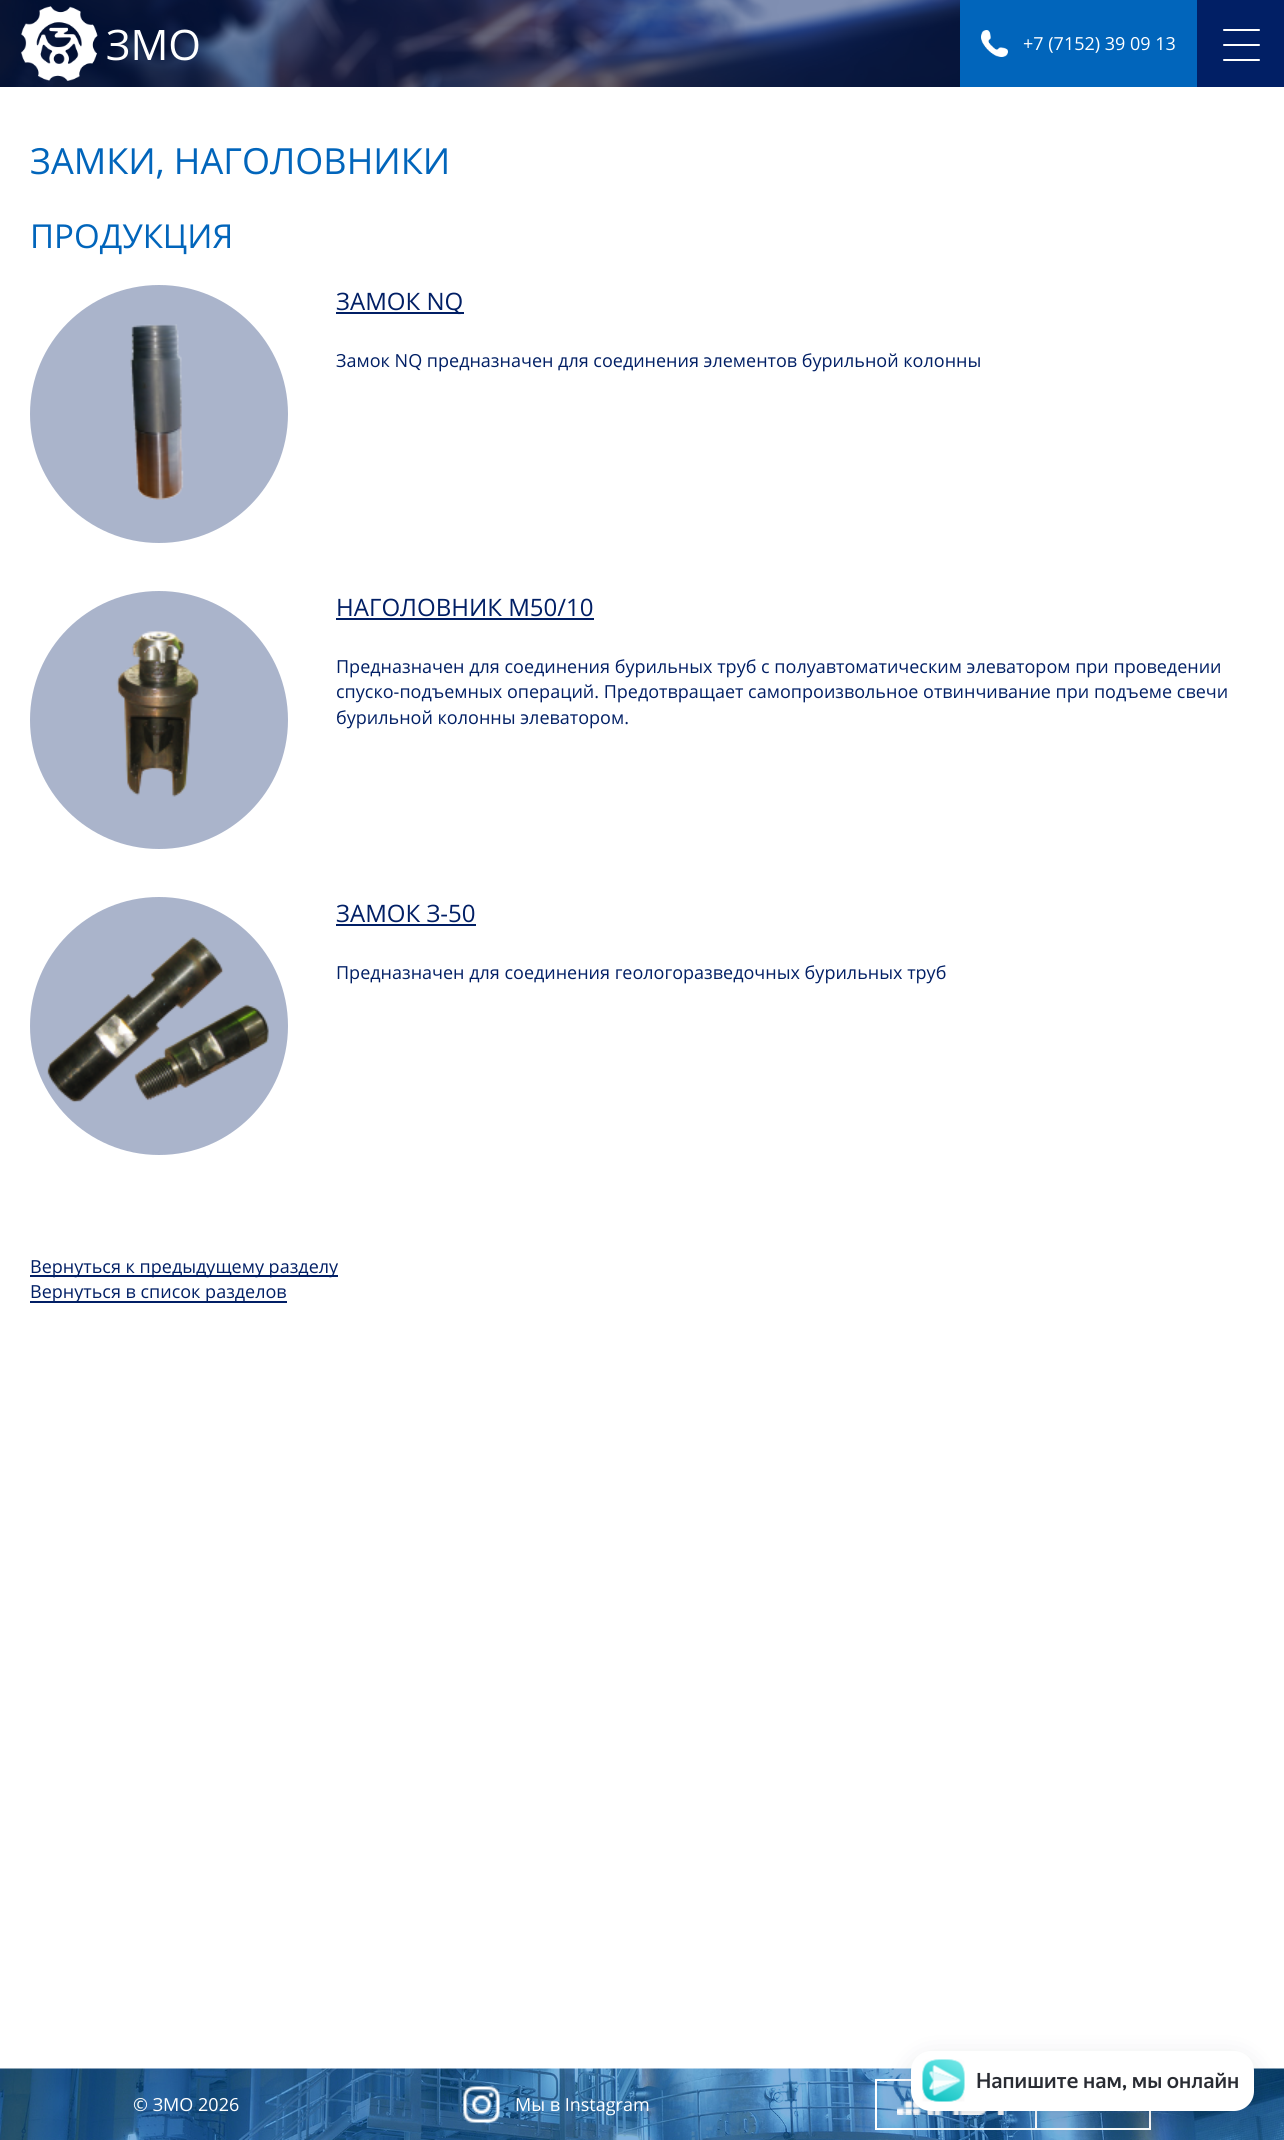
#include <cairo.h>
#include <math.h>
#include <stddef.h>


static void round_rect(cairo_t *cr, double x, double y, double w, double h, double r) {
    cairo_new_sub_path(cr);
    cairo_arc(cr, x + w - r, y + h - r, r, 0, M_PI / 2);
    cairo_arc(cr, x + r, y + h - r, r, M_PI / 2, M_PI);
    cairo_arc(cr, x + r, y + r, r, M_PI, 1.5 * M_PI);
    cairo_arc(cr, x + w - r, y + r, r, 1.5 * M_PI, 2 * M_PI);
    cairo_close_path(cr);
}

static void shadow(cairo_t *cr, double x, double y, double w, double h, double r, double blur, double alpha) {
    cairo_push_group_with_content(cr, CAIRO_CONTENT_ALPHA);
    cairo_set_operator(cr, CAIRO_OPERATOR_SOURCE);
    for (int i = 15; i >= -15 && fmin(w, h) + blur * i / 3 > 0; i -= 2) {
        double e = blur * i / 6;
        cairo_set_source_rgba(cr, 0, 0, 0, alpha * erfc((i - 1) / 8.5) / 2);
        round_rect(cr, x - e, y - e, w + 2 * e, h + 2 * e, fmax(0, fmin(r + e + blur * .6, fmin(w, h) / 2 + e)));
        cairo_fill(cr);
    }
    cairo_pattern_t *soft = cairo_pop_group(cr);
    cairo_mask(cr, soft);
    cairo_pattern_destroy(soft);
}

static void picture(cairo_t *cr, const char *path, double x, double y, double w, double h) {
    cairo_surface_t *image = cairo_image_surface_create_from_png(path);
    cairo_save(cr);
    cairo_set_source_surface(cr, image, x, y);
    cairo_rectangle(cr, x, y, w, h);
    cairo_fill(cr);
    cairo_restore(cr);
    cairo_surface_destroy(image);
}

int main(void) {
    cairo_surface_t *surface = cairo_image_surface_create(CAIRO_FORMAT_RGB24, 1284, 2140);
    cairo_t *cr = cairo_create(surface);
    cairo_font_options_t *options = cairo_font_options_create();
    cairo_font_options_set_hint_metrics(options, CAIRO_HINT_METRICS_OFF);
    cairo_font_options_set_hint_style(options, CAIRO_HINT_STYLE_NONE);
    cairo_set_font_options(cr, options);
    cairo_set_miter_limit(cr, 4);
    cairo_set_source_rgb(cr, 1, 1, 1);
    cairo_paint(cr);
    picture(cr, "img1.png", 0, 0, 960, 87);
    picture(cr, "img2.png", 21, 6, 77, 75);
    cairo_select_font_face(cr, "Open Sans", CAIRO_FONT_SLANT_NORMAL, CAIRO_FONT_WEIGHT_NORMAL);
    cairo_set_font_size(cr, 42);
    cairo_set_source_rgb(cr, 1, 1, 1);
    cairo_move_to(cr, 106, 60);
    cairo_show_text(cr, "ЗМО");
    cairo_set_source_rgb(cr, 0.004, 0.396, 0.733);
    cairo_rectangle(cr, 960, 0, 237, 87);
    cairo_fill(cr);
    picture(cr, "img3.png", 981, 30, 27, 27);
    cairo_set_font_size(cr, 18);
    cairo_set_source_rgb(cr, 1, 1, 1);
    cairo_move_to(cr, 1023, 50);
    cairo_show_text(cr, "+7 (7152) 39 09 13");
    cairo_set_source_rgb(cr, 0.004, 0.122, 0.396);
    cairo_rectangle(cr, 1197, 0, 87, 87);
    cairo_fill(cr);
    cairo_set_source_rgb(cr, 1, 1, 1);
    round_rect(cr, 1223, 44, 37, 2, 1);
    cairo_fill(cr);
    round_rect(cr, 1223, 29, 37, 2, 1);
    cairo_fill(cr);
    round_rect(cr, 1223, 59, 37, 2, 1);
    cairo_fill(cr);
    cairo_set_font_size(cr, 36);
    cairo_set_source_rgb(cr, 0.004, 0.396, 0.733);
    cairo_move_to(cr, 30, 174);
    cairo_show_text(cr, "ЗАМКИ, НАГОЛОВНИКИ");
    cairo_set_font_size(cr, 33);
    cairo_move_to(cr, 30, 248);
    cairo_show_text(cr, "ПРОДУКЦИЯ");
    cairo_set_source_rgb(cr, 0.667, 0.706, 0.796);
    cairo_new_path(cr);
    cairo_arc(cr, 159, 414, 129, 0, 2 * M_PI);
    cairo_fill(cr);
    picture(cr, "img4.png", 130, 324, 54, 176);
    cairo_set_source_rgb(cr, 0.004, 0.122, 0.396);
    cairo_rectangle(cr, 336, 312, 128, 2);
    cairo_fill(cr);
    cairo_set_font_size(cr, 24);
    cairo_move_to(cr, 336, 310);
    cairo_show_text(cr, "ЗАМОК NQ");
    cairo_set_font_size(cr, 18);
    cairo_move_to(cr, 336, 367);
    cairo_show_text(cr, "Замок NQ предназначен для соединения элементов бурильной колонны");
    cairo_set_source_rgb(cr, 0.667, 0.706, 0.796);
    cairo_new_path(cr);
    cairo_arc(cr, 159, 720, 129, 0, 2 * M_PI);
    cairo_fill(cr);
    picture(cr, "img5.png", 116, 630, 83, 167);
    cairo_set_font_size(cr, 24);
    cairo_set_source_rgb(cr, 0.004, 0.122, 0.396);
    cairo_move_to(cr, 336, 616);
    cairo_show_text(cr, "НАГОЛОВНИК М50/10");
    cairo_rectangle(cr, 336, 618, 258, 2);
    cairo_fill(cr);
    cairo_set_font_size(cr, 18);
    cairo_move_to(cr, 336, 673);
    cairo_show_text(cr, "Предназначен для соединения бурильных труб с полуавтоматическим элеватором при проведении");
    cairo_move_to(cr, 336, 698);
    cairo_show_text(cr, "спуско-подъемных операций. Предотвращает самопроизвольное отвинчивание при подъеме свечи");
    cairo_move_to(cr, 336, 724);
    cairo_show_text(cr, "бурильной колонны элеватором.");
    cairo_set_source_rgb(cr, 0.667, 0.706, 0.796);
    cairo_new_path(cr);
    cairo_arc(cr, 159, 1026, 129, 0, 2 * M_PI);
    cairo_fill(cr);
    picture(cr, "img6.png", 47, 937, 222, 166);
    cairo_set_font_size(cr, 24);
    cairo_set_source_rgb(cr, 0.004, 0.122, 0.396);
    cairo_move_to(cr, 336, 922);
    cairo_show_text(cr, "ЗАМОК З-50");
    cairo_rectangle(cr, 336, 924, 140, 2);
    cairo_fill(cr);
    cairo_set_font_size(cr, 18);
    cairo_move_to(cr, 336, 979);
    cairo_show_text(cr, "Предназначен для соединения геологоразведочных бурильных труб");
    cairo_rectangle(cr, 30, 1275, 308, 2);
    cairo_fill(cr);
    cairo_move_to(cr, 30, 1273);
    cairo_show_text(cr, "Вернуться к предыдущему разделу");
    cairo_rectangle(cr, 30, 1301, 257, 2);
    cairo_fill(cr);
    cairo_move_to(cr, 30, 1298);
    cairo_show_text(cr, "Вернуться в список разделов");
    picture(cr, "img8.png", 0, 2068, 1284, 72);
    cairo_rectangle(cr, 876, 2080, 274, 49);
    cairo_set_source_rgb(cr, 1, 1, 1);
    cairo_stroke(cr);
    picture(cr, "img10.png", 897, 2097, 107, 18);
    cairo_rectangle(cr, 1035, 2111, 2, 18);
    cairo_fill(cr);
    cairo_set_source_rgb(cr, 0.055, 0.082, 0.184);
    shadow(cr, 911, 2060, 343, 60, 20, 13.5, 0.13);
    cairo_set_source_rgb(cr, 1, 1, 1);
    round_rect(cr, 911, 2051, 343, 60, 20);
    cairo_fill(cr);
    picture(cr, "img7.png", 922, 2059, 43, 43);
    cairo_select_font_face(cr, "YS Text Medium", CAIRO_FONT_SLANT_NORMAL, CAIRO_FONT_WEIGHT_NORMAL);
    cairo_set_font_size(cr, 21);
    cairo_set_source_rgb(cr, 0.161, 0.173, 0.2);
    cairo_move_to(cr, 976, 2088);
    cairo_show_text(cr, "Напишите нам, мы онлайн");
    cairo_select_font_face(cr, "Open Sans", CAIRO_FONT_SLANT_NORMAL, CAIRO_FONT_WEIGHT_NORMAL);
    cairo_set_font_size(cr, 18);
    cairo_set_source_rgb(cr, 1, 1, 1);
    cairo_move_to(cr, 133, 2111);
    cairo_show_text(cr, "© ЗМО 2026");
    picture(cr, "img9.png", 463, 2086, 37, 37);
    cairo_move_to(cr, 515, 2111);
    cairo_show_text(cr, "Мы в Instagram");
    cairo_surface_write_to_png(surface, "page.png");
    cairo_font_options_destroy(options);
    cairo_destroy(cr);
    cairo_surface_destroy(surface);
    return 0;
}
